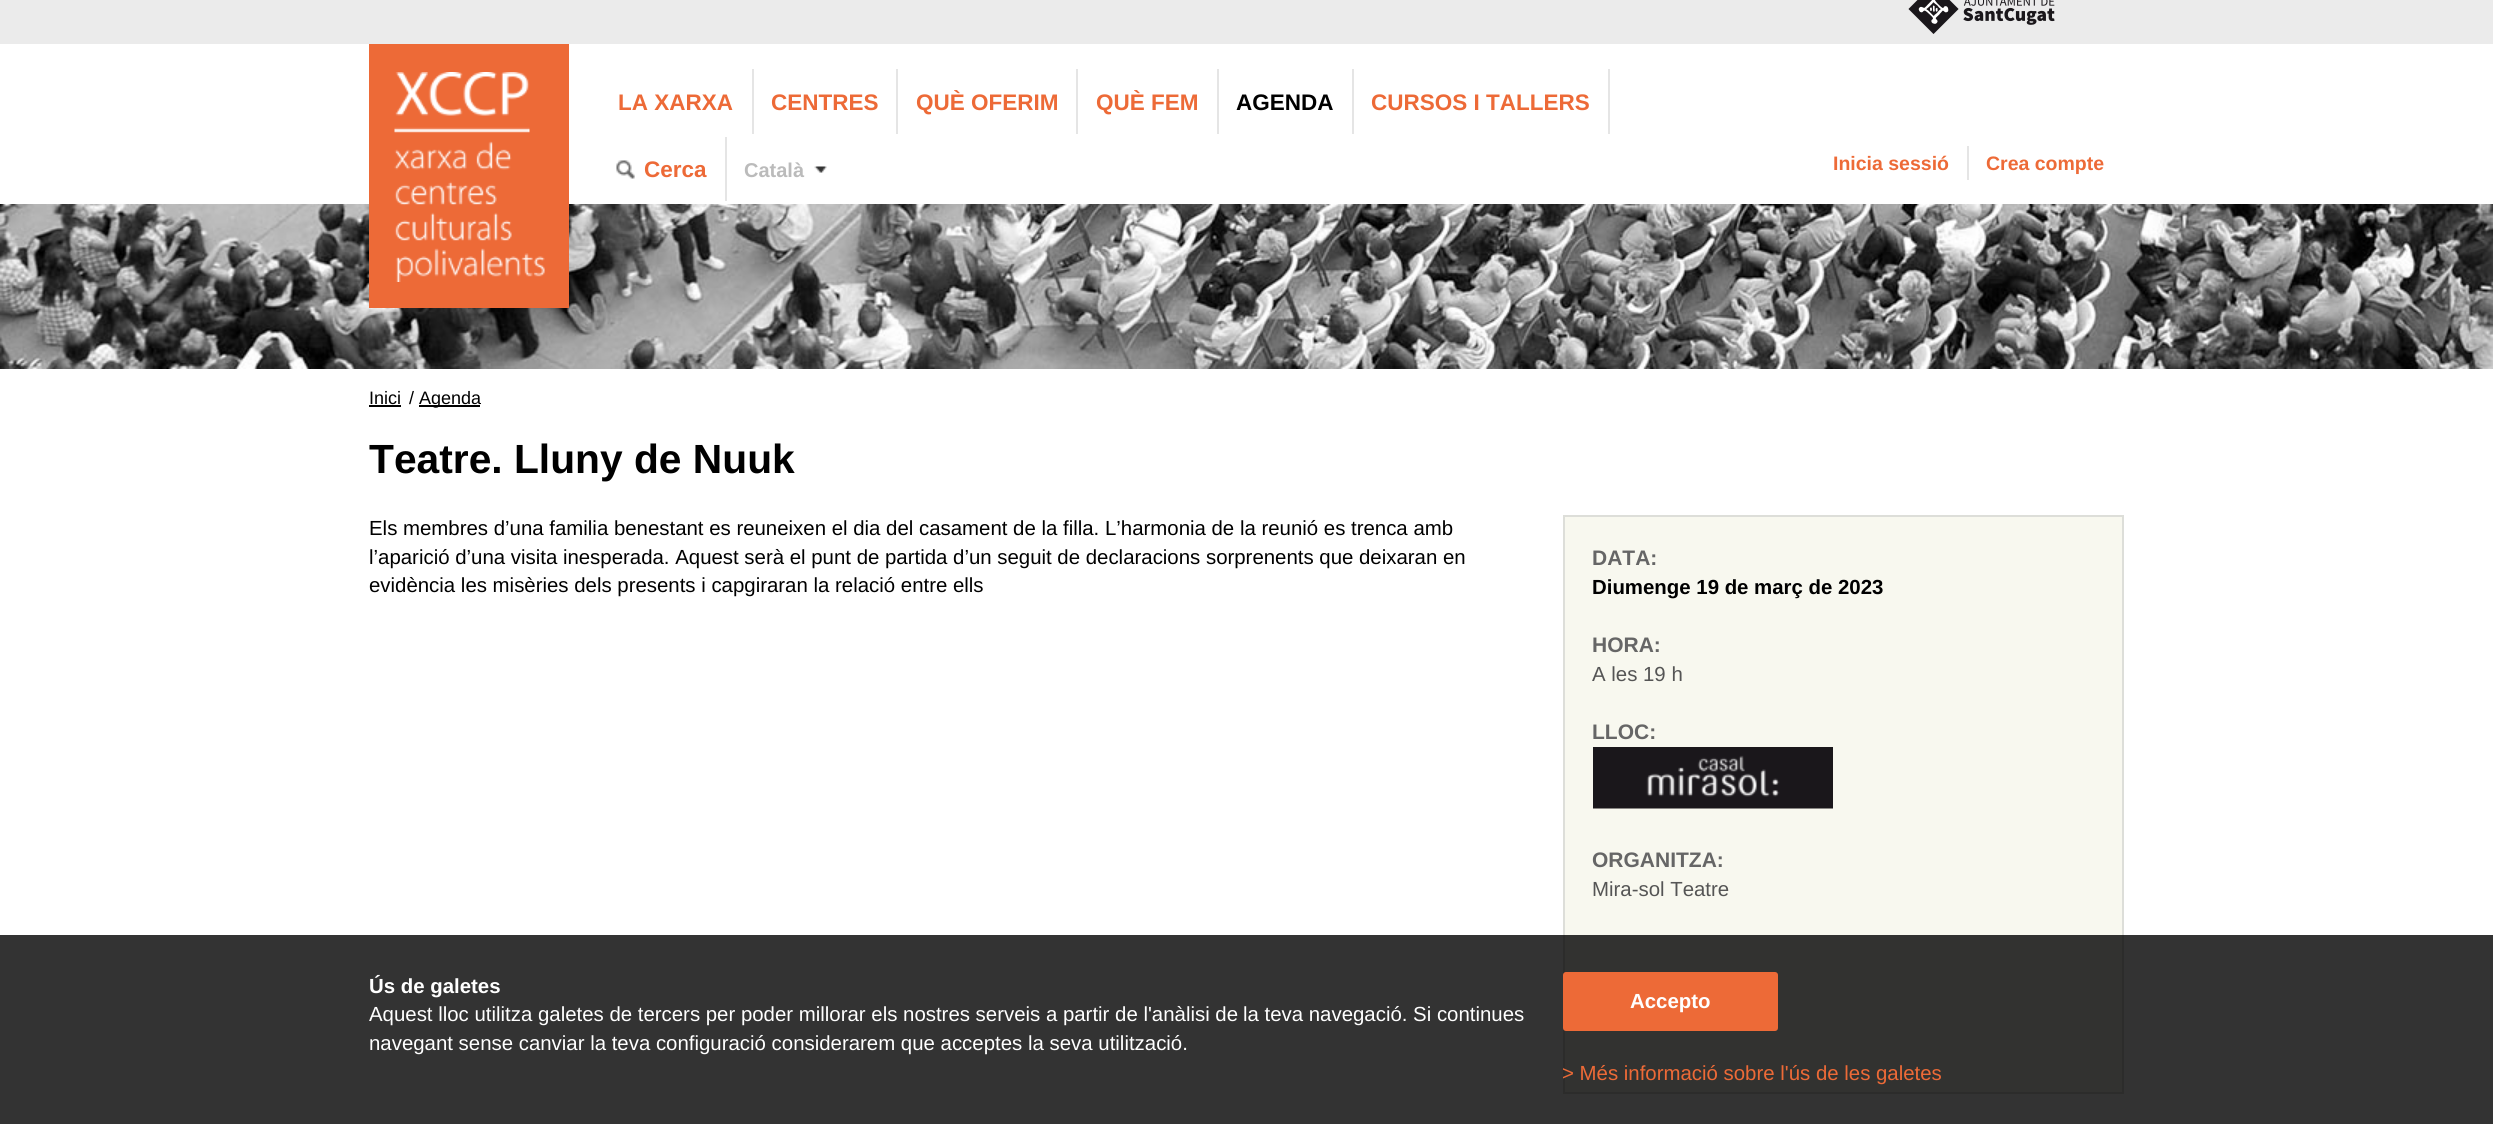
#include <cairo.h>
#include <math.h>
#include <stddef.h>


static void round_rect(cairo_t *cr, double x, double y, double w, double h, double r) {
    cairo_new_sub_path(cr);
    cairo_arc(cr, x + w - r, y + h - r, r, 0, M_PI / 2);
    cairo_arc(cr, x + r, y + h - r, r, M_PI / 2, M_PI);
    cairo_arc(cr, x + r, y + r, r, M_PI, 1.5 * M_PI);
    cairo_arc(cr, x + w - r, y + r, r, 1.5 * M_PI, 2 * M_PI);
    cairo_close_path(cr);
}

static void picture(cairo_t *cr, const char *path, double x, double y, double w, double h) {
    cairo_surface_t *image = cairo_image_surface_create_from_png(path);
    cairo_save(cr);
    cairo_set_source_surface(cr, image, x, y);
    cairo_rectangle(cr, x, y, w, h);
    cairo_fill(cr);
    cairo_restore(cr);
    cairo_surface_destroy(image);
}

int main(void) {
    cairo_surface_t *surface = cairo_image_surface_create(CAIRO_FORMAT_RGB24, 2493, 1124);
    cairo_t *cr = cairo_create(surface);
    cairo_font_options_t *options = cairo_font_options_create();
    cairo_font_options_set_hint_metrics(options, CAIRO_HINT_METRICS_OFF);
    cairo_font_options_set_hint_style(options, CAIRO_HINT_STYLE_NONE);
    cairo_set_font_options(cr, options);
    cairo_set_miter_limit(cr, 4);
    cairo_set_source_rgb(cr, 1, 1, 1);
    cairo_paint(cr);
    cairo_set_source_rgb(cr, 0.918, 0.918, 0.918);
    cairo_rectangle(cr, 0, 0, 2493, 44);
    cairo_fill(cr);
    picture(cr, "img1.png", 1908, 0, 147, 34);
    picture(cr, "img5.png", 0, 204, 2493, 165);
    cairo_set_source_rgb(cr, 0.929, 0.416, 0.216);
    cairo_rectangle(cr, 369, 44, 200, 264);
    cairo_fill(cr);
    picture(cr, "img2.png", 394, 72, 151, 210);
    cairo_set_source_rgb(cr, 0.898, 0.898, 0.898);
    cairo_rectangle(cr, 752, 69, 2, 65);
    cairo_fill(cr);
    cairo_select_font_face(cr, "Liberation Sans", CAIRO_FONT_SLANT_NORMAL, CAIRO_FONT_WEIGHT_BOLD);
    cairo_set_font_size(cr, 22.5);
    cairo_set_source_rgb(cr, 0.929, 0.416, 0.216);
    cairo_move_to(cr, 618, 110);
    cairo_show_text(cr, "LA XARXA");
    cairo_set_source_rgb(cr, 0.898, 0.898, 0.898);
    cairo_rectangle(cr, 896, 69, 2, 65);
    cairo_fill(cr);
    cairo_set_source_rgb(cr, 0.929, 0.416, 0.216);
    cairo_move_to(cr, 771, 110);
    cairo_show_text(cr, "CENTRES");
    cairo_set_source_rgb(cr, 0.898, 0.898, 0.898);
    cairo_rectangle(cr, 1076, 69, 2, 65);
    cairo_fill(cr);
    cairo_set_source_rgb(cr, 0.929, 0.416, 0.216);
    cairo_move_to(cr, 916, 110);
    cairo_show_text(cr, "QUÈ OFERIM");
    cairo_set_source_rgb(cr, 0.898, 0.898, 0.898);
    cairo_rectangle(cr, 1217, 69, 2, 65);
    cairo_fill(cr);
    cairo_set_source_rgb(cr, 0.929, 0.416, 0.216);
    cairo_move_to(cr, 1096, 110);
    cairo_show_text(cr, "QUÈ FEM");
    cairo_set_source_rgb(cr, 0.898, 0.898, 0.898);
    cairo_rectangle(cr, 1352, 69, 2, 65);
    cairo_fill(cr);
    cairo_set_source_rgb(cr, 0, 0, 0);
    cairo_move_to(cr, 1236, 110);
    cairo_show_text(cr, "AGENDA");
    cairo_set_source_rgb(cr, 0.898, 0.898, 0.898);
    cairo_rectangle(cr, 1608, 69, 2, 65);
    cairo_fill(cr);
    cairo_set_source_rgb(cr, 0.929, 0.416, 0.216);
    cairo_move_to(cr, 1371, 110);
    cairo_show_text(cr, "CURSOS I TALLERS");
    picture(cr, "img3.png", 616, 160, 19, 19);
    cairo_set_source_rgb(cr, 0.898, 0.898, 0.898);
    cairo_rectangle(cr, 725, 137, 2, 64);
    cairo_fill(cr);
    cairo_set_source_rgb(cr, 0.929, 0.416, 0.216);
    cairo_move_to(cr, 644, 177);
    cairo_show_text(cr, "Cerca");
    picture(cr, "img4.png", 814, 166, 13, 7);
    cairo_set_font_size(cr, 20);
    cairo_set_source_rgb(cr, 0.733, 0.733, 0.733);
    cairo_move_to(cr, 744, 177);
    cairo_show_text(cr, "Català");
    cairo_set_font_size(cr, 19.5);
    cairo_set_source_rgb(cr, 0.929, 0.416, 0.216);
    cairo_move_to(cr, 1833, 170);
    cairo_show_text(cr, "Inicia sessió");
    cairo_set_source_rgb(cr, 0.898, 0.898, 0.898);
    cairo_rectangle(cr, 1967, 146, 2, 34);
    cairo_fill(cr);
    cairo_set_source_rgb(cr, 0.929, 0.416, 0.216);
    cairo_move_to(cr, 1986, 170);
    cairo_show_text(cr, "Crea compte");
    cairo_select_font_face(cr, "Liberation Sans", CAIRO_FONT_SLANT_NORMAL, CAIRO_FONT_WEIGHT_NORMAL);
    cairo_set_font_size(cr, 18);
    cairo_set_source_rgb(cr, 0, 0, 0);
    cairo_move_to(cr, 369, 404);
    cairo_show_text(cr, "Inici");
    cairo_rectangle(cr, 369, 405, 32, 2);
    cairo_fill(cr);
    cairo_move_to(cr, 409, 404);
    cairo_show_text(cr, "/");
    cairo_rectangle(cr, 419, 405, 61, 2);
    cairo_fill(cr);
    cairo_move_to(cr, 419, 404);
    cairo_show_text(cr, "Agenda");
    cairo_select_font_face(cr, "Liberation Sans", CAIRO_FONT_SLANT_NORMAL, CAIRO_FONT_WEIGHT_BOLD);
    cairo_set_font_size(cr, 40.75);
    cairo_move_to(cr, 369, 473);
    cairo_show_text(cr, "Teatre. Lluny de Nuuk");
    cairo_select_font_face(cr, "Liberation Sans", CAIRO_FONT_SLANT_NORMAL, CAIRO_FONT_WEIGHT_NORMAL);
    cairo_set_font_size(cr, 20.4);
    cairo_move_to(cr, 369, 535);
    cairo_show_text(cr, "Els membres d’una familia benestant es reuneixen el dia del casament de la filla. L’harmonia de la reunió es trenca amb");
    cairo_move_to(cr, 369, 564);
    cairo_show_text(cr, "l’aparició d’una visita inesperada. Aquest serà el punt de partida d’un seguit de declaracions sorprenents que deixaran en");
    cairo_move_to(cr, 369, 592);
    cairo_show_text(cr, "evidència les misèries dels presents i capgiraran la relació entre ells");
    cairo_set_source_rgb(cr, 0.969, 0.969, 0.937);
    cairo_rectangle(cr, 1564, 516, 559, 577);
    cairo_fill_preserve(cr);
    cairo_set_source_rgb(cr, 0.867, 0.871, 0.851);
    cairo_stroke(cr);
    cairo_select_font_face(cr, "Liberation Sans", CAIRO_FONT_SLANT_NORMAL, CAIRO_FONT_WEIGHT_BOLD);
    cairo_set_font_size(cr, 21);
    cairo_set_source_rgb(cr, 0.4, 0.4, 0.4);
    cairo_move_to(cr, 1592, 565);
    cairo_show_text(cr, "DATA:");
    cairo_set_font_size(cr, 20.4);
    cairo_set_source_rgb(cr, 0, 0, 0);
    cairo_move_to(cr, 1592, 594);
    cairo_show_text(cr, "Diumenge 19 de març de 2023");
    cairo_set_font_size(cr, 21);
    cairo_set_source_rgb(cr, 0.4, 0.4, 0.4);
    cairo_move_to(cr, 1592, 652);
    cairo_show_text(cr, "HORA:");
    cairo_select_font_face(cr, "Liberation Sans", CAIRO_FONT_SLANT_NORMAL, CAIRO_FONT_WEIGHT_NORMAL);
    cairo_set_font_size(cr, 20.4);
    cairo_set_source_rgb(cr, 0.333, 0.333, 0.333);
    cairo_move_to(cr, 1592, 681);
    cairo_show_text(cr, "A les 19 h");
    cairo_select_font_face(cr, "Liberation Sans", CAIRO_FONT_SLANT_NORMAL, CAIRO_FONT_WEIGHT_BOLD);
    cairo_set_font_size(cr, 21);
    cairo_set_source_rgb(cr, 0.4, 0.4, 0.4);
    cairo_move_to(cr, 1592, 739);
    cairo_show_text(cr, "LLOC:");
    picture(cr, "img6.png", 1593, 747, 240, 62);
    cairo_move_to(cr, 1592, 867);
    cairo_show_text(cr, "ORGANITZA:");
    cairo_select_font_face(cr, "Liberation Sans", CAIRO_FONT_SLANT_NORMAL, CAIRO_FONT_WEIGHT_NORMAL);
    cairo_set_font_size(cr, 20.4);
    cairo_set_source_rgb(cr, 0.333, 0.333, 0.333);
    cairo_move_to(cr, 1592, 896);
    cairo_show_text(cr, "Mira-sol Teatre");
    cairo_set_source_rgba(cr, 0, 0, 0, 0.8);
    cairo_rectangle(cr, 0, 935, 2493, 189);
    cairo_fill(cr);
    cairo_select_font_face(cr, "Liberation Sans", CAIRO_FONT_SLANT_NORMAL, CAIRO_FONT_WEIGHT_BOLD);
    cairo_set_source_rgb(cr, 1, 1, 1);
    cairo_move_to(cr, 369, 993);
    cairo_show_text(cr, "Ús de galetes");
    cairo_select_font_face(cr, "Liberation Sans", CAIRO_FONT_SLANT_NORMAL, CAIRO_FONT_WEIGHT_NORMAL);
    cairo_move_to(cr, 369, 1021);
    cairo_show_text(cr, "Aquest lloc utilitza galetes de tercers per poder millorar els nostres serveis a partir de l'anàlisi de");
    cairo_move_to(cr, 1243, 1021);
    cairo_show_text(cr, "la teva navegació. Si continues");
    cairo_move_to(cr, 369, 1050);
    cairo_show_text(cr, "navegant sense canviar la teva configuració considerarem que acceptes");
    cairo_move_to(cr, 1028, 1050);
    cairo_show_text(cr, "la seva utilització.");
    cairo_set_source_rgb(cr, 0.929, 0.416, 0.216);
    round_rect(cr, 1563, 972, 215, 59, 3);
    cairo_fill(cr);
    cairo_select_font_face(cr, "Liberation Sans", CAIRO_FONT_SLANT_NORMAL, CAIRO_FONT_WEIGHT_BOLD);
    cairo_set_source_rgb(cr, 1, 1, 1);
    cairo_move_to(cr, 1630, 1008);
    cairo_show_text(cr, "Accepto");
    cairo_select_font_face(cr, "Liberation Sans", CAIRO_FONT_SLANT_NORMAL, CAIRO_FONT_WEIGHT_NORMAL);
    cairo_set_source_rgb(cr, 0.929, 0.416, 0.216);
    cairo_move_to(cr, 1562, 1080);
    cairo_show_text(cr, "> Més informació sobre l'ús de les galetes");
    cairo_surface_write_to_png(surface, "page.png");
    cairo_font_options_destroy(options);
    cairo_destroy(cr);
    cairo_surface_destroy(surface);
    return 0;
}
